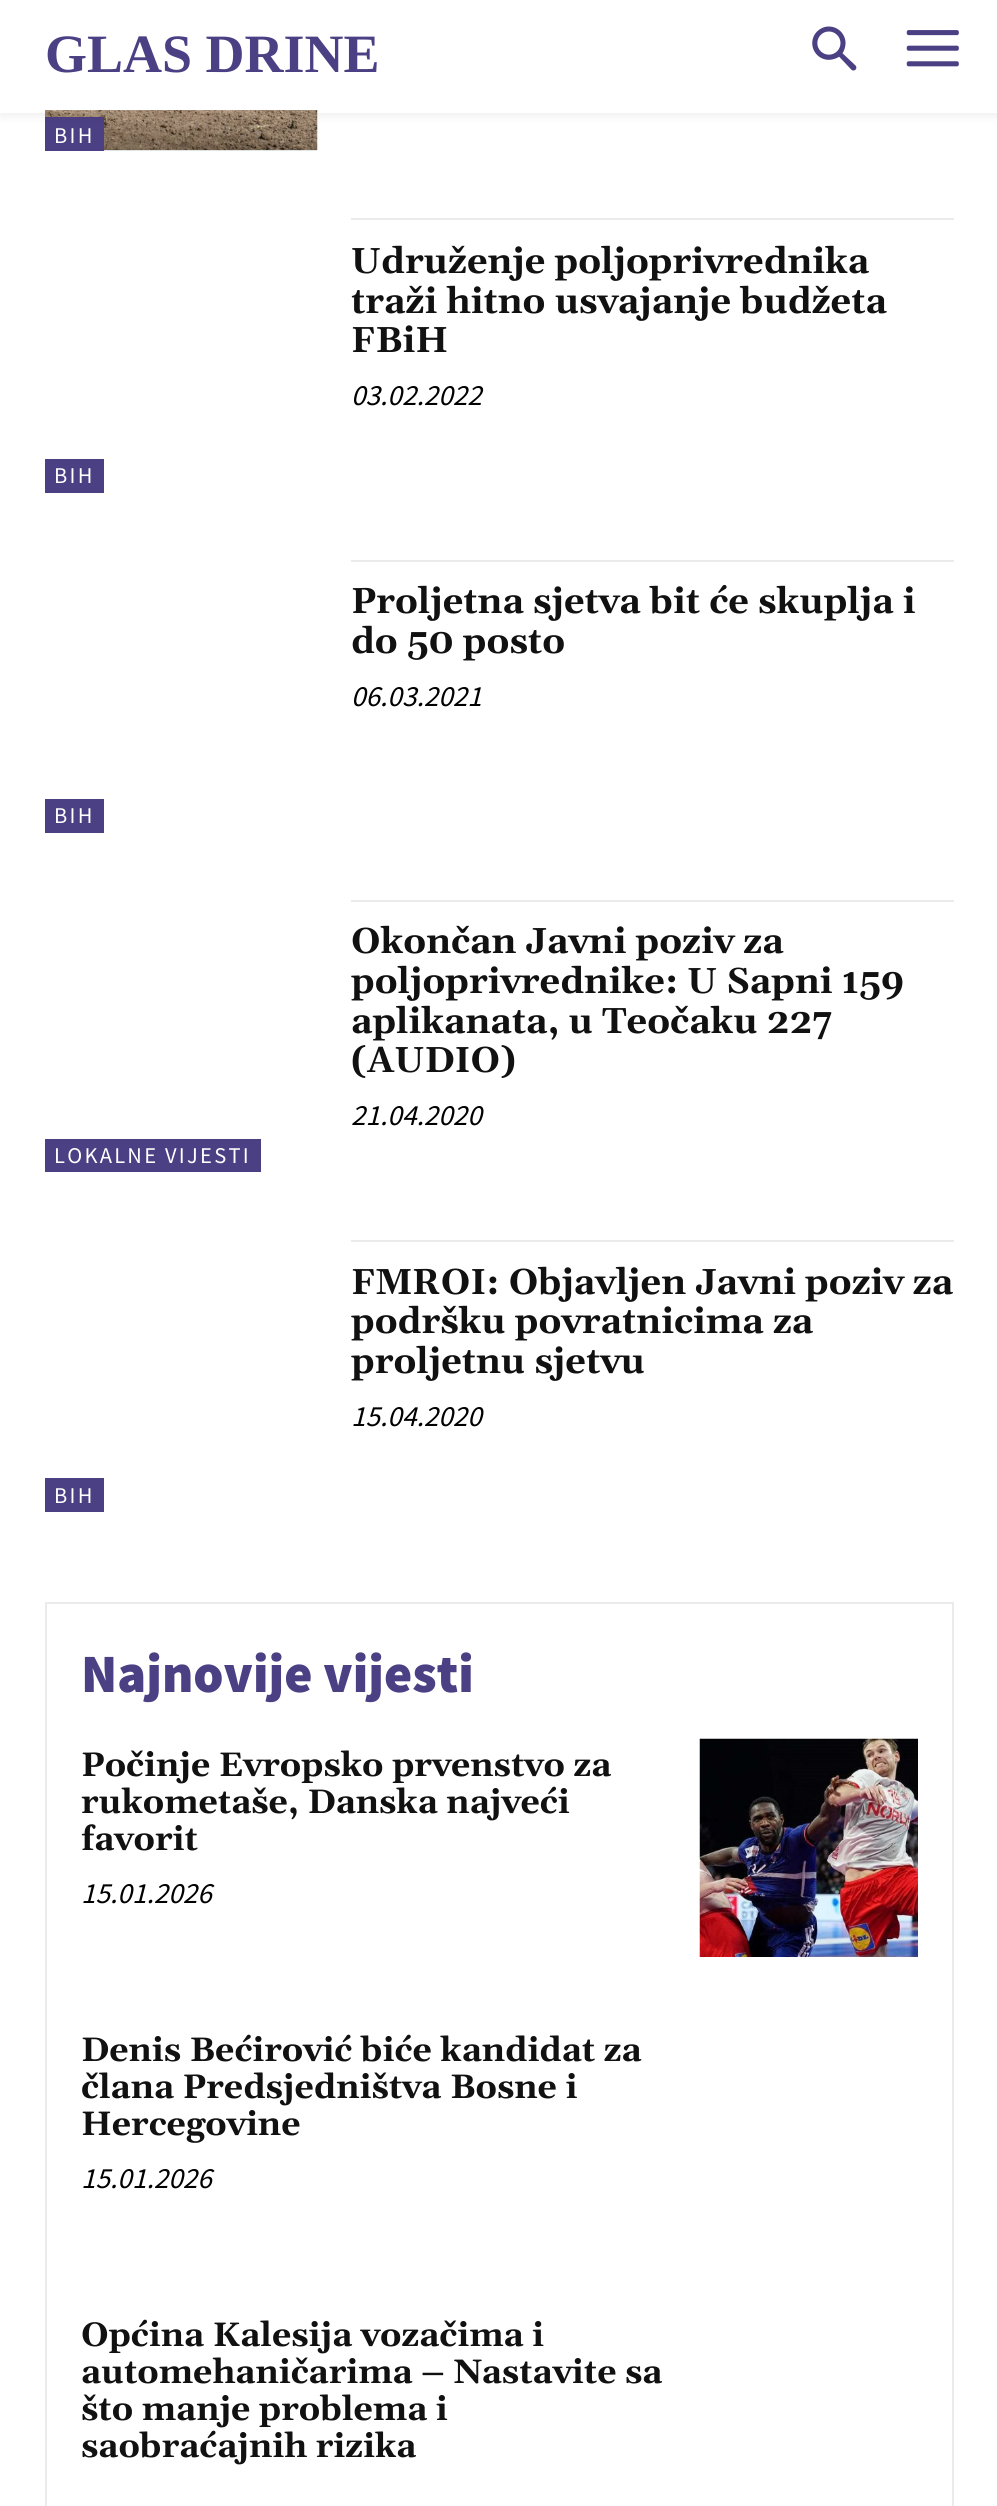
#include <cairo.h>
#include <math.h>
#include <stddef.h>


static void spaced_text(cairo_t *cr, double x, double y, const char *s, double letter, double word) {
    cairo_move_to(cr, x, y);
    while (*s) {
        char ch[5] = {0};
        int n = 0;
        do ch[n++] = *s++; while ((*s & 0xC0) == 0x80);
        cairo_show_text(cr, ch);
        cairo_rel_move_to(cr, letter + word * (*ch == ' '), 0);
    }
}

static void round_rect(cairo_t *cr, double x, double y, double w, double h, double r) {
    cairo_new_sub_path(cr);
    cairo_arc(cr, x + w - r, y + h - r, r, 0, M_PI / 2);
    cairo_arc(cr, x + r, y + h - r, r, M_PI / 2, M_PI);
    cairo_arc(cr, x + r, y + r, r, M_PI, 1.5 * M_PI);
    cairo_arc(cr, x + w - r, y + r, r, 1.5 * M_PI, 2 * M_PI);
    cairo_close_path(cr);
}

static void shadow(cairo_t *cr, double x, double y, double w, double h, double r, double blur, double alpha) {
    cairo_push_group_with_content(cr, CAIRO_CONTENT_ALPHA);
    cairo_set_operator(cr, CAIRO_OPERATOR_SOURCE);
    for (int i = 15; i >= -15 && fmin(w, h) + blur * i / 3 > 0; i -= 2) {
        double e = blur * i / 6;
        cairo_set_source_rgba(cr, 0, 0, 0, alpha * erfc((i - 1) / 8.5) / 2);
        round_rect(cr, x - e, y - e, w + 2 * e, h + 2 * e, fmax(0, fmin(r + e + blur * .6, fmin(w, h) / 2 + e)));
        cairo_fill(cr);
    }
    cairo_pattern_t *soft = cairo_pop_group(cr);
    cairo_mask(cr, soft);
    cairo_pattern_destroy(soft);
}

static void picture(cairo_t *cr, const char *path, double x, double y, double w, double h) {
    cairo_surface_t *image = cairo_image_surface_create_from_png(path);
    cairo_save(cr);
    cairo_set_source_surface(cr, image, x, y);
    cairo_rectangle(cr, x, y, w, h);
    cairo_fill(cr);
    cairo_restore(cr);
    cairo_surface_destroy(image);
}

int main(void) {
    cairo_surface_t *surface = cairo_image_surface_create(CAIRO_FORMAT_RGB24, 997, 2506);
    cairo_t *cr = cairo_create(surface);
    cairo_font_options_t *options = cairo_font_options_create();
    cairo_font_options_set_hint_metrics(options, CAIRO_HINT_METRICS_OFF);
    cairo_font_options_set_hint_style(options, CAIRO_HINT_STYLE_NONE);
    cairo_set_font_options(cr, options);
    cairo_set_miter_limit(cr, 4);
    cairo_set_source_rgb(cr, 1, 1, 1);
    cairo_paint(cr);
    picture(cr, "img1.png", 812, 26, 45, 45);
    picture(cr, "img2.png", 906, 30, 53, 37);
    picture(cr, "img3.png", 45, 110, 273, 41);
    cairo_set_source_rgb(cr, 0.298, 0.251, 0.518);
    cairo_rectangle(cr, 45, 117, 59, 34);
    cairo_fill(cr);
    cairo_save(cr);
    cairo_set_fill_rule(cr, CAIRO_FILL_RULE_EVEN_ODD);
    cairo_new_path(cr);
    cairo_move_to(cr, 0, 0);
    cairo_line_to(cr, 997, 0);
    cairo_line_to(cr, 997, 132);
    cairo_line_to(cr, 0, 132);
    cairo_close_path(cr);
    cairo_move_to(cr, 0, 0);
    cairo_line_to(cr, 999, 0);
    cairo_line_to(cr, 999, 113);
    cairo_line_to(cr, 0, 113);
    cairo_close_path(cr);
    cairo_clip(cr);
    cairo_set_source_rgb(cr, 0, 0, 0);
    shadow(cr, 0, 5, 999, 112, 0, 4.5, 0.06);
    cairo_restore(cr);
    cairo_select_font_face(cr, "Liberation Serif", CAIRO_FONT_SLANT_NORMAL, CAIRO_FONT_WEIGHT_BOLD);
    cairo_set_font_size(cr, 54);
    cairo_move_to(cr, 45, 72);
    cairo_show_text(cr, "GLAS DRINE");
    cairo_select_font_face(cr, "Source Sans Pro", CAIRO_FONT_SLANT_NORMAL, CAIRO_FONT_WEIGHT_NORMAL);
    cairo_set_font_size(cr, 22.5);
    cairo_set_source_rgb(cr, 1, 1, 1);
    spaced_text(cr, 54, 143, "BIH", 2.25, 0);
    cairo_set_source_rgb(cr, 0.918, 0.918, 0.918);
    cairo_rectangle(cr, 351, 218, 603, 2);
    cairo_fill(cr);
    cairo_select_font_face(cr, "Gelasio", CAIRO_FONT_SLANT_NORMAL, CAIRO_FONT_WEIGHT_BOLD);
    cairo_set_font_size(cr, 36);
    cairo_set_source_rgb(cr, 0.067, 0.067, 0.067);
    cairo_move_to(cr, 351, 273);
    cairo_show_text(cr, "Udruženje poljoprivrednika");
    cairo_move_to(cr, 351, 313);
    cairo_show_text(cr, "traži hitno usvajanje budžeta");
    cairo_move_to(cr, 351, 352);
    cairo_show_text(cr, "FBiH");
    cairo_select_font_face(cr, "Source Sans Pro", CAIRO_FONT_SLANT_ITALIC, CAIRO_FONT_WEIGHT_NORMAL);
    cairo_set_font_size(cr, 29.25);
    cairo_set_source_rgb(cr, 0, 0, 0);
    cairo_move_to(cr, 351, 405);
    cairo_show_text(cr, "03.02.2022");
    cairo_set_source_rgb(cr, 0.298, 0.251, 0.518);
    cairo_rectangle(cr, 45, 459, 59, 34);
    cairo_fill(cr);
    cairo_select_font_face(cr, "Source Sans Pro", CAIRO_FONT_SLANT_NORMAL, CAIRO_FONT_WEIGHT_NORMAL);
    cairo_set_font_size(cr, 22.5);
    cairo_set_source_rgb(cr, 1, 1, 1);
    spaced_text(cr, 54, 483, "BIH", 2.25, 0);
    cairo_set_source_rgb(cr, 0.918, 0.918, 0.918);
    cairo_rectangle(cr, 351, 560, 603, 2);
    cairo_fill(cr);
    cairo_select_font_face(cr, "Gelasio", CAIRO_FONT_SLANT_NORMAL, CAIRO_FONT_WEIGHT_BOLD);
    cairo_set_font_size(cr, 36);
    cairo_set_source_rgb(cr, 0.067, 0.067, 0.067);
    cairo_move_to(cr, 351, 613);
    cairo_show_text(cr, "Proljetna sjetva bit će skuplja i");
    cairo_move_to(cr, 351, 653);
    cairo_show_text(cr, "do 50 posto");
    cairo_select_font_face(cr, "Source Sans Pro", CAIRO_FONT_SLANT_ITALIC, CAIRO_FONT_WEIGHT_NORMAL);
    cairo_set_font_size(cr, 29.25);
    cairo_set_source_rgb(cr, 0, 0, 0);
    cairo_move_to(cr, 351, 706);
    cairo_show_text(cr, "06.03.2021");
    cairo_set_source_rgb(cr, 0.298, 0.251, 0.518);
    cairo_rectangle(cr, 45, 799, 59, 34);
    cairo_fill(cr);
    cairo_select_font_face(cr, "Source Sans Pro", CAIRO_FONT_SLANT_NORMAL, CAIRO_FONT_WEIGHT_NORMAL);
    cairo_set_font_size(cr, 22.5);
    cairo_set_source_rgb(cr, 1, 1, 1);
    spaced_text(cr, 54, 823, "BIH", 2.25, 0);
    cairo_set_source_rgb(cr, 0.918, 0.918, 0.918);
    cairo_rectangle(cr, 351, 900, 603, 2);
    cairo_fill(cr);
    cairo_select_font_face(cr, "Gelasio", CAIRO_FONT_SLANT_NORMAL, CAIRO_FONT_WEIGHT_BOLD);
    cairo_set_font_size(cr, 36);
    cairo_set_source_rgb(cr, 0.067, 0.067, 0.067);
    cairo_move_to(cr, 351, 953);
    cairo_show_text(cr, "Okončan Javni poziv za");
    cairo_move_to(cr, 351, 993);
    cairo_show_text(cr, "poljoprivrednike: U Sapni 159");
    cairo_move_to(cr, 351, 1033);
    cairo_show_text(cr, "aplikanata, u Teočaku 227");
    cairo_move_to(cr, 351, 1072);
    cairo_show_text(cr, "(AUDIO)");
    cairo_select_font_face(cr, "Source Sans Pro", CAIRO_FONT_SLANT_ITALIC, CAIRO_FONT_WEIGHT_NORMAL);
    cairo_set_font_size(cr, 29.25);
    cairo_set_source_rgb(cr, 0, 0, 0);
    cairo_move_to(cr, 351, 1125);
    cairo_show_text(cr, "21.04.2020");
    cairo_set_source_rgb(cr, 0.298, 0.251, 0.518);
    cairo_rectangle(cr, 45, 1139, 216, 33);
    cairo_fill(cr);
    cairo_select_font_face(cr, "Source Sans Pro", CAIRO_FONT_SLANT_NORMAL, CAIRO_FONT_WEIGHT_NORMAL);
    cairo_set_font_size(cr, 22.5);
    cairo_set_source_rgb(cr, 1, 1, 1);
    spaced_text(cr, 54, 1163, "LOKALNE VIJESTI", 2.25, 0);
    cairo_set_source_rgb(cr, 0.918, 0.918, 0.918);
    cairo_rectangle(cr, 351, 1240, 603, 2);
    cairo_fill(cr);
    cairo_select_font_face(cr, "Gelasio", CAIRO_FONT_SLANT_NORMAL, CAIRO_FONT_WEIGHT_BOLD);
    cairo_set_font_size(cr, 36);
    cairo_set_source_rgb(cr, 0.067, 0.067, 0.067);
    cairo_move_to(cr, 351, 1294);
    cairo_show_text(cr, "FMROI: Objavljen Javni poziv za");
    cairo_move_to(cr, 351, 1333);
    cairo_show_text(cr, "podršku povratnicima za");
    cairo_move_to(cr, 351, 1373);
    cairo_show_text(cr, "proljetnu sjetvu");
    cairo_select_font_face(cr, "Source Sans Pro", CAIRO_FONT_SLANT_ITALIC, CAIRO_FONT_WEIGHT_NORMAL);
    cairo_set_font_size(cr, 29.25);
    cairo_set_source_rgb(cr, 0, 0, 0);
    cairo_move_to(cr, 351, 1426);
    cairo_show_text(cr, "15.04.2020");
    cairo_set_source_rgb(cr, 0.298, 0.251, 0.518);
    cairo_rectangle(cr, 45, 1478, 59, 34);
    cairo_fill(cr);
    cairo_select_font_face(cr, "Source Sans Pro", CAIRO_FONT_SLANT_NORMAL, CAIRO_FONT_WEIGHT_NORMAL);
    cairo_set_font_size(cr, 22.5);
    cairo_set_source_rgb(cr, 1, 1, 1);
    spaced_text(cr, 54, 1503, "BIH", 2.25, 0);
    cairo_rectangle(cr, 46, 1603, 907, 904);
    cairo_set_source_rgb(cr, 0.918, 0.918, 0.918);
    cairo_stroke(cr);
    cairo_select_font_face(cr, "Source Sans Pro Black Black", CAIRO_FONT_SLANT_NORMAL, CAIRO_FONT_WEIGHT_NORMAL);
    cairo_set_font_size(cr, 54);
    cairo_set_source_rgb(cr, 0.298, 0.251, 0.518);
    cairo_move_to(cr, 81, 1692);
    cairo_show_text(cr, "Najnovije vijesti");
    cairo_select_font_face(cr, "Gelasio", CAIRO_FONT_SLANT_NORMAL, CAIRO_FONT_WEIGHT_BOLD);
    cairo_set_font_size(cr, 33.75);
    cairo_set_source_rgb(cr, 0.067, 0.067, 0.067);
    cairo_move_to(cr, 81, 1776);
    cairo_show_text(cr, "Počinje Evropsko prvenstvo za");
    cairo_move_to(cr, 81, 1813);
    cairo_show_text(cr, "rukometaše, Danska najveći");
    cairo_move_to(cr, 81, 1850);
    cairo_show_text(cr, "favorit");
    cairo_select_font_face(cr, "Source Sans Pro", CAIRO_FONT_SLANT_ITALIC, CAIRO_FONT_WEIGHT_NORMAL);
    cairo_set_font_size(cr, 29.25);
    cairo_set_source_rgb(cr, 0, 0, 0);
    cairo_move_to(cr, 81, 1903);
    cairo_show_text(cr, "15.01.2026");
    picture(cr, "img4.png", 699, 1738, 219, 219);
    cairo_select_font_face(cr, "Gelasio", CAIRO_FONT_SLANT_NORMAL, CAIRO_FONT_WEIGHT_BOLD);
    cairo_set_font_size(cr, 33.75);
    cairo_set_source_rgb(cr, 0.067, 0.067, 0.067);
    cairo_move_to(cr, 81, 2061);
    cairo_show_text(cr, "Denis Bećirović biće kandidat za");
    cairo_move_to(cr, 81, 2098);
    cairo_show_text(cr, "člana Predsjedništva Bosne i");
    cairo_move_to(cr, 81, 2135);
    cairo_show_text(cr, "Hercegovine");
    cairo_select_font_face(cr, "Source Sans Pro", CAIRO_FONT_SLANT_ITALIC, CAIRO_FONT_WEIGHT_NORMAL);
    cairo_set_font_size(cr, 29.25);
    cairo_set_source_rgb(cr, 0, 0, 0);
    cairo_move_to(cr, 81, 2188);
    cairo_show_text(cr, "15.01.2026");
    cairo_select_font_face(cr, "Gelasio", CAIRO_FONT_SLANT_NORMAL, CAIRO_FONT_WEIGHT_BOLD);
    cairo_set_font_size(cr, 33.75);
    cairo_set_source_rgb(cr, 0.067, 0.067, 0.067);
    cairo_move_to(cr, 81, 2346);
    cairo_show_text(cr, "Općina Kalesija vozačima i");
    cairo_move_to(cr, 81, 2383);
    cairo_show_text(cr, "automehaničarima – Nastavite sa");
    cairo_move_to(cr, 81, 2420);
    cairo_show_text(cr, "što manje problema i");
    cairo_move_to(cr, 81, 2457);
    cairo_show_text(cr, "saobraćajnih rizika");
    cairo_surface_write_to_png(surface, "page.png");
    cairo_font_options_destroy(options);
    cairo_destroy(cr);
    cairo_surface_destroy(surface);
    return 0;
}
